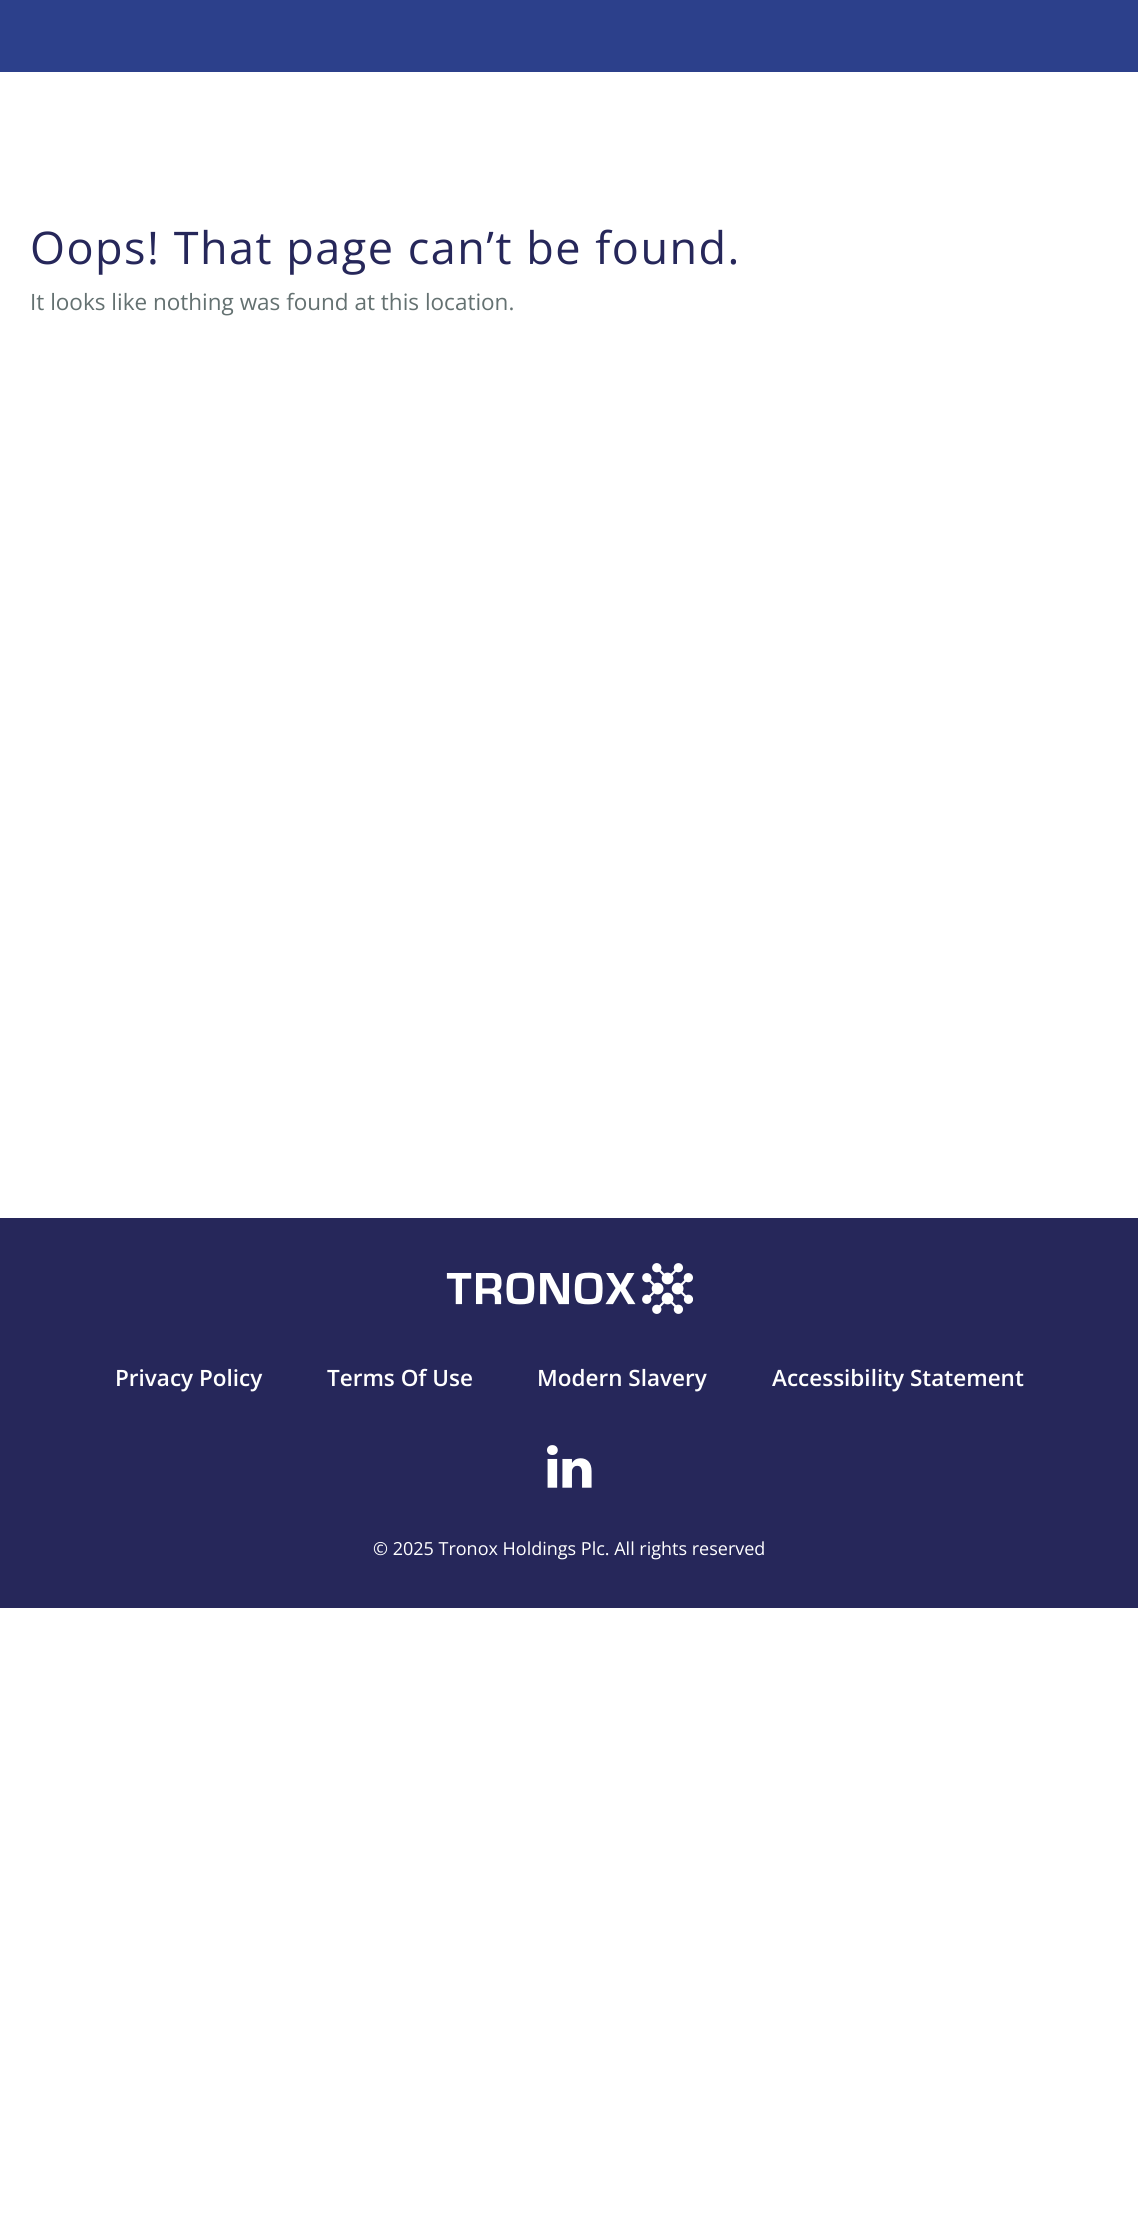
#include <cairo.h>
#include <math.h>
#include <stddef.h>


static void spaced_text(cairo_t *cr, double x, double y, const char *s, double letter, double word) {
    cairo_move_to(cr, x, y);
    while (*s) {
        char ch[5] = {0};
        int n = 0;
        do ch[n++] = *s++; while ((*s & 0xC0) == 0x80);
        cairo_show_text(cr, ch);
        cairo_rel_move_to(cr, letter + word * (*ch == ' '), 0);
    }
}

static void picture(cairo_t *cr, const char *path, double x, double y, double w, double h) {
    cairo_surface_t *image = cairo_image_surface_create_from_png(path);
    cairo_save(cr);
    cairo_set_source_surface(cr, image, x, y);
    cairo_rectangle(cr, x, y, w, h);
    cairo_fill(cr);
    cairo_restore(cr);
    cairo_surface_destroy(image);
}

int main(void) {
    cairo_surface_t *surface = cairo_image_surface_create(CAIRO_FORMAT_RGB24, 1138, 2219);
    cairo_t *cr = cairo_create(surface);
    cairo_font_options_t *options = cairo_font_options_create();
    cairo_font_options_set_hint_metrics(options, CAIRO_HINT_METRICS_OFF);
    cairo_font_options_set_hint_style(options, CAIRO_HINT_STYLE_NONE);
    cairo_set_font_options(cr, options);
    cairo_set_miter_limit(cr, 4);
    cairo_set_source_rgb(cr, 1, 1, 1);
    cairo_paint(cr);
    cairo_set_source_rgb(cr, 0.173, 0.251, 0.545);
    cairo_rectangle(cr, 0, 0, 1138, 72);
    cairo_fill(cr);
    cairo_select_font_face(cr, "Open Sans", CAIRO_FONT_SLANT_NORMAL, CAIRO_FONT_WEIGHT_NORMAL);
    cairo_set_font_size(cr, 45);
    cairo_set_source_rgb(cr, 0.149, 0.153, 0.353);
    spaced_text(cr, 30, 264, "Oops! That page can’t be found.", 1.5, 0);
    cairo_set_font_size(cr, 22.5);
    cairo_set_source_rgb(cr, 0.392, 0.443, 0.443);
    cairo_move_to(cr, 30, 310);
    cairo_show_text(cr, "It looks like nothing was found at this location.");
    cairo_set_source_rgb(cr, 0.149, 0.153, 0.353);
    cairo_rectangle(cr, 0, 1218, 1138, 390);
    cairo_fill(cr);
    picture(cr, "img1.png", 446, 1263, 247, 51);
    cairo_select_font_face(cr, "Open Sans SemiBold", CAIRO_FONT_SLANT_NORMAL, CAIRO_FONT_WEIGHT_NORMAL);
    cairo_set_source_rgb(cr, 1, 1, 1);
    cairo_move_to(cr, 115, 1386);
    cairo_show_text(cr, "Privacy Policy");
    cairo_move_to(cr, 327, 1386);
    cairo_show_text(cr, "Terms Of Use");
    cairo_move_to(cr, 537, 1386);
    cairo_show_text(cr, "Modern Slavery");
    cairo_move_to(cr, 772, 1386);
    cairo_show_text(cr, "Accessibility Statement");
    cairo_select_font_face(cr, "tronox", CAIRO_FONT_SLANT_NORMAL, CAIRO_FONT_WEIGHT_NORMAL);
    cairo_set_font_size(cr, 52);
    cairo_move_to(cr, 547, 1485);
    cairo_show_text(cr, "L");
    cairo_select_font_face(cr, "Open Sans", CAIRO_FONT_SLANT_NORMAL, CAIRO_FONT_WEIGHT_NORMAL);
    cairo_set_font_size(cr, 18);
    cairo_move_to(cr, 373, 1555);
    cairo_show_text(cr, "© 2025 Tronox Holdings Plc. All rights reserved");
    cairo_surface_write_to_png(surface, "page.png");
    cairo_font_options_destroy(options);
    cairo_destroy(cr);
    cairo_surface_destroy(surface);
    return 0;
}
